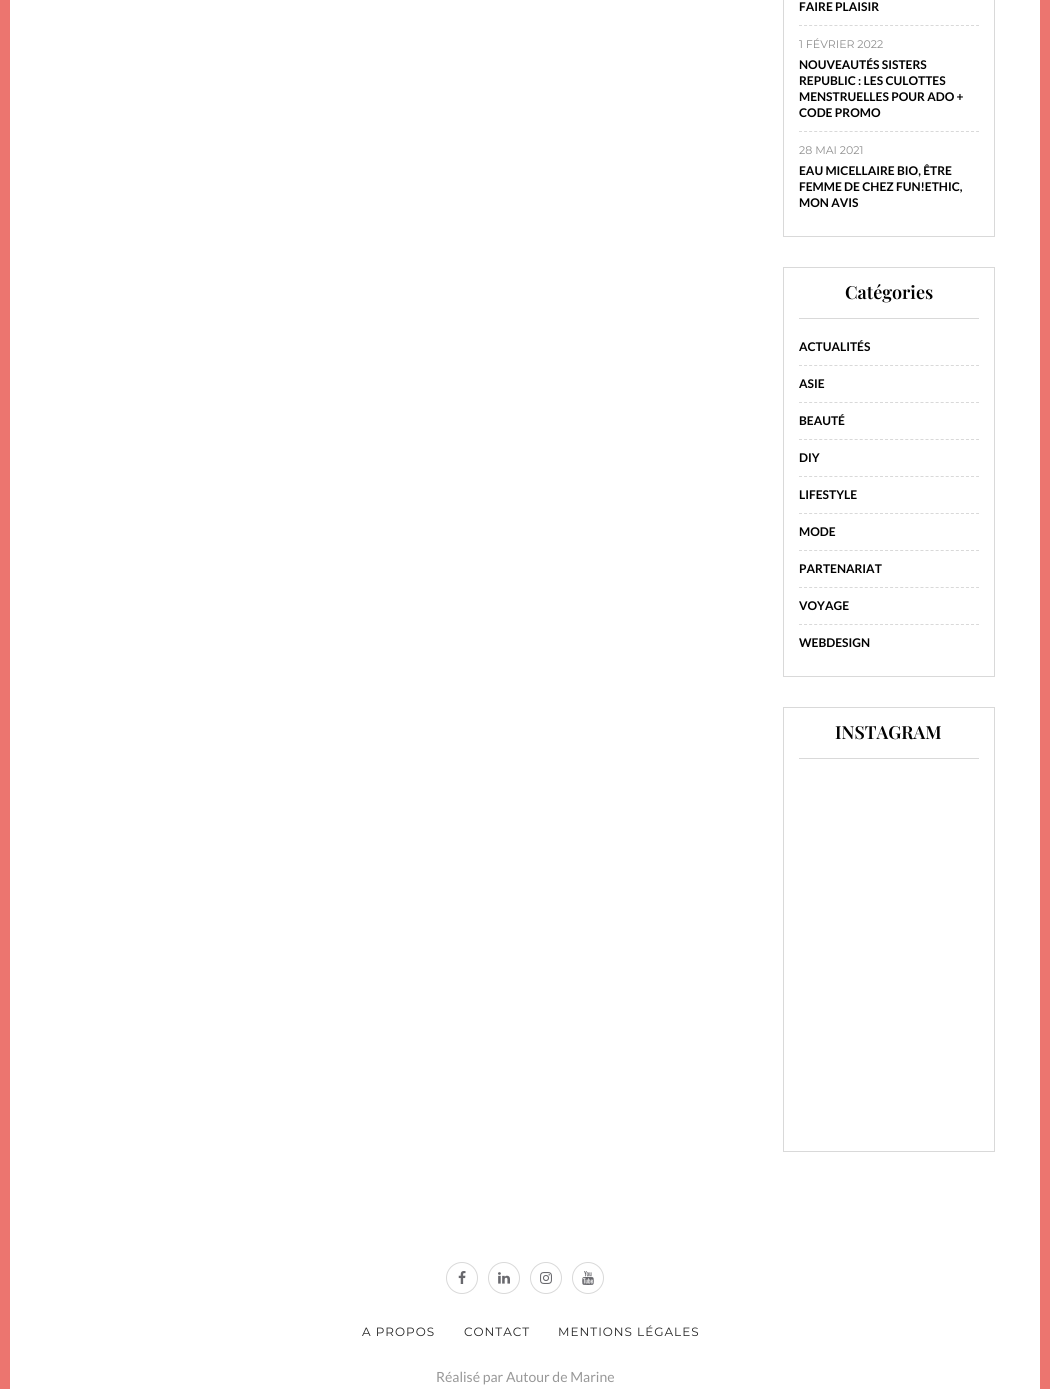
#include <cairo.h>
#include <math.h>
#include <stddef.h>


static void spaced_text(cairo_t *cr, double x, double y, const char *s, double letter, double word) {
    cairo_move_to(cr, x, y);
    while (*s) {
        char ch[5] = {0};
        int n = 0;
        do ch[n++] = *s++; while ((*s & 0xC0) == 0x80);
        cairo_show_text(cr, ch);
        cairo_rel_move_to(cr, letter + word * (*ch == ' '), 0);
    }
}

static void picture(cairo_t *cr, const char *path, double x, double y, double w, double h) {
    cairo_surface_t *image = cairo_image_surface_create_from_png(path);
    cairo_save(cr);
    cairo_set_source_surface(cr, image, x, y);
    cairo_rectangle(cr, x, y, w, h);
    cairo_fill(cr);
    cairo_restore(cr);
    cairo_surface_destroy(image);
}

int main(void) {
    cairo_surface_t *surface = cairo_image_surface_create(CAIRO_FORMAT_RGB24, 1050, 1389);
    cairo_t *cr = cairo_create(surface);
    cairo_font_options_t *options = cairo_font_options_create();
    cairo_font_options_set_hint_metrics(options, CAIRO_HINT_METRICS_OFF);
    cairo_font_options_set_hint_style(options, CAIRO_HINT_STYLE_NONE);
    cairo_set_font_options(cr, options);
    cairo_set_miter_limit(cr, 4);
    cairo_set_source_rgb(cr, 1, 1, 1);
    cairo_paint(cr);
    cairo_rectangle(cr, 5, -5, 1040, 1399);
    cairo_set_source_rgb(cr, 0.922, 0.459, 0.435);
    cairo_set_line_width(cr, 10);
    cairo_stroke(cr);
    cairo_rectangle(cr, 783.5, -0.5, 211, 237);
    cairo_set_source_rgb(cr, 0.851, 0.851, 0.851);
    cairo_set_line_width(cr, 1);
    cairo_stroke(cr);
    cairo_new_path(cr);
    cairo_move_to(cr, 799, 25.5);
    cairo_line_to(cr, 979, 25.5);
    cairo_set_dash(cr, (double[]){3, 2.06}, 2, 0);
    cairo_stroke(cr);
    cairo_select_font_face(cr, "Lato", CAIRO_FONT_SLANT_NORMAL, CAIRO_FONT_WEIGHT_BOLD);
    cairo_set_font_size(cr, 12);
    cairo_set_source_rgb(cr, 0, 0, 0);
    cairo_move_to(cr, 799, 11);
    cairo_show_text(cr, "FAIRE PLAISIR");
    cairo_new_path(cr);
    cairo_move_to(cr, 799, 131.5);
    cairo_line_to(cr, 979, 131.5);
    cairo_set_source_rgb(cr, 0.851, 0.851, 0.851);
    cairo_stroke(cr);
    cairo_select_font_face(cr, "Montserrat Thin", CAIRO_FONT_SLANT_NORMAL, CAIRO_FONT_WEIGHT_NORMAL);
    cairo_set_font_size(cr, 11);
    cairo_set_source_rgb(cr, 0.557, 0.557, 0.557);
    cairo_move_to(cr, 799, 48);
    cairo_show_text(cr, "1 FÉVRIER 2022");
    cairo_select_font_face(cr, "Lato", CAIRO_FONT_SLANT_NORMAL, CAIRO_FONT_WEIGHT_BOLD);
    cairo_set_font_size(cr, 12);
    cairo_set_source_rgb(cr, 0, 0, 0);
    cairo_move_to(cr, 799, 69);
    cairo_show_text(cr, "NOUVEAUTÉS SISTERS");
    cairo_move_to(cr, 799, 85);
    cairo_show_text(cr, "REPUBLIC : LES CULOTTES");
    cairo_move_to(cr, 799, 101);
    cairo_show_text(cr, "MENSTRUELLES POUR ADO +");
    cairo_move_to(cr, 799, 117);
    cairo_show_text(cr, "CODE PROMO");
    cairo_select_font_face(cr, "Montserrat Thin", CAIRO_FONT_SLANT_NORMAL, CAIRO_FONT_WEIGHT_NORMAL);
    cairo_set_font_size(cr, 11);
    cairo_set_source_rgb(cr, 0.557, 0.557, 0.557);
    cairo_move_to(cr, 799, 154);
    cairo_show_text(cr, "28 MAI 2021");
    cairo_select_font_face(cr, "Lato", CAIRO_FONT_SLANT_NORMAL, CAIRO_FONT_WEIGHT_BOLD);
    cairo_set_font_size(cr, 12);
    cairo_set_source_rgb(cr, 0, 0, 0);
    cairo_move_to(cr, 799, 175);
    cairo_show_text(cr, "EAU MICELLAIRE BIO, ÊTRE");
    cairo_move_to(cr, 799, 191);
    cairo_show_text(cr, "FEMME DE CHEZ FUN!ETHIC,");
    cairo_move_to(cr, 799, 207);
    cairo_show_text(cr, "MON AVIS");
    cairo_rectangle(cr, 783.5, 267.5, 211, 409);
    cairo_set_source_rgb(cr, 0.851, 0.851, 0.851);
    cairo_set_dash(cr, NULL, 0, 0);
    cairo_stroke(cr);
    cairo_rectangle(cr, 799, 318, 180, 1);
    cairo_fill(cr);
    cairo_select_font_face(cr, "Playfair Display SemiBold", CAIRO_FONT_SLANT_NORMAL, CAIRO_FONT_WEIGHT_NORMAL);
    cairo_set_font_size(cr, 18);
    cairo_set_source_rgb(cr, 0, 0, 0);
    cairo_move_to(cr, 845, 299);
    cairo_show_text(cr, "Catégories");
    cairo_new_path(cr);
    cairo_move_to(cr, 799, 365.5);
    cairo_line_to(cr, 979, 365.5);
    cairo_set_source_rgb(cr, 0.851, 0.851, 0.851);
    cairo_set_dash(cr, (double[]){3, 2.06}, 2, 0);
    cairo_stroke(cr);
    cairo_select_font_face(cr, "Lato", CAIRO_FONT_SLANT_NORMAL, CAIRO_FONT_WEIGHT_BOLD);
    cairo_set_font_size(cr, 12);
    cairo_set_source_rgb(cr, 0, 0, 0);
    cairo_move_to(cr, 799, 351);
    cairo_show_text(cr, "ACTUALITÉS");
    cairo_new_path(cr);
    cairo_move_to(cr, 799, 402.5);
    cairo_line_to(cr, 979, 402.5);
    cairo_set_source_rgb(cr, 0.851, 0.851, 0.851);
    cairo_stroke(cr);
    cairo_set_source_rgb(cr, 0, 0, 0);
    cairo_move_to(cr, 799, 388);
    cairo_show_text(cr, "ASIE");
    cairo_new_path(cr);
    cairo_move_to(cr, 799, 439.5);
    cairo_line_to(cr, 979, 439.5);
    cairo_set_source_rgb(cr, 0.851, 0.851, 0.851);
    cairo_stroke(cr);
    cairo_set_source_rgb(cr, 0, 0, 0);
    cairo_move_to(cr, 799, 425);
    cairo_show_text(cr, "BEAUTÉ");
    cairo_new_path(cr);
    cairo_move_to(cr, 799, 476.5);
    cairo_line_to(cr, 979, 476.5);
    cairo_set_source_rgb(cr, 0.851, 0.851, 0.851);
    cairo_stroke(cr);
    cairo_set_source_rgb(cr, 0, 0, 0);
    cairo_move_to(cr, 799, 462);
    cairo_show_text(cr, "DIY");
    cairo_new_path(cr);
    cairo_move_to(cr, 799, 513.5);
    cairo_line_to(cr, 979, 513.5);
    cairo_set_source_rgb(cr, 0.851, 0.851, 0.851);
    cairo_stroke(cr);
    cairo_set_source_rgb(cr, 0, 0, 0);
    cairo_move_to(cr, 799, 499);
    cairo_show_text(cr, "LIFESTYLE");
    cairo_new_path(cr);
    cairo_move_to(cr, 799, 550.5);
    cairo_line_to(cr, 979, 550.5);
    cairo_set_source_rgb(cr, 0.851, 0.851, 0.851);
    cairo_stroke(cr);
    cairo_set_source_rgb(cr, 0, 0, 0);
    cairo_move_to(cr, 799, 536);
    cairo_show_text(cr, "MODE");
    cairo_new_path(cr);
    cairo_move_to(cr, 799, 587.5);
    cairo_line_to(cr, 979, 587.5);
    cairo_set_source_rgb(cr, 0.851, 0.851, 0.851);
    cairo_stroke(cr);
    cairo_set_source_rgb(cr, 0, 0, 0);
    cairo_move_to(cr, 799, 573);
    cairo_show_text(cr, "PARTENARIAT");
    cairo_new_path(cr);
    cairo_move_to(cr, 799, 624.5);
    cairo_line_to(cr, 979, 624.5);
    cairo_set_source_rgb(cr, 0.851, 0.851, 0.851);
    cairo_stroke(cr);
    cairo_set_source_rgb(cr, 0, 0, 0);
    cairo_move_to(cr, 799, 610);
    cairo_show_text(cr, "VOYAGE");
    cairo_move_to(cr, 799, 647);
    cairo_show_text(cr, "WEBDESIGN");
    cairo_rectangle(cr, 783.5, 707.5, 211, 444);
    cairo_set_source_rgb(cr, 0.851, 0.851, 0.851);
    cairo_set_dash(cr, NULL, 0, 0);
    cairo_stroke(cr);
    cairo_rectangle(cr, 799, 758, 180, 1);
    cairo_fill(cr);
    cairo_select_font_face(cr, "Playfair Display SemiBold", CAIRO_FONT_SLANT_NORMAL, CAIRO_FONT_WEIGHT_NORMAL);
    cairo_set_font_size(cr, 18);
    cairo_set_source_rgb(cr, 0, 0, 0);
    cairo_move_to(cr, 835, 739);
    cairo_show_text(cr, "INSTAGRAM");
    cairo_new_path(cr);
    cairo_arc(cr, 462, 1278, 15.5, 0, 2 * M_PI);
    cairo_set_source_rgb(cr, 0.851, 0.851, 0.851);
    cairo_stroke(cr);
    picture(cr, "img1.png", 458, 1271, 8, 13);
    cairo_arc(cr, 504, 1278, 15.5, 0, 2 * M_PI);
    cairo_stroke(cr);
    picture(cr, "img2.png", 498, 1272, 12, 12);
    cairo_arc(cr, 546, 1278, 15.5, 0, 2 * M_PI);
    cairo_stroke(cr);
    picture(cr, "img3.png", 540, 1272, 12, 12);
    cairo_arc(cr, 588, 1278, 15.5, 0, 2 * M_PI);
    cairo_stroke(cr);
    picture(cr, "img4.png", 582, 1271, 12, 14);
    cairo_select_font_face(cr, "Montserrat Thin", CAIRO_FONT_SLANT_NORMAL, CAIRO_FONT_WEIGHT_NORMAL);
    cairo_set_font_size(cr, 12);
    cairo_set_source_rgb(cr, 0.141, 0.141, 0.141);
    spaced_text(cr, 362, 1336, "A PROPOS", 1, 0);
    spaced_text(cr, 464, 1336, "CONTACT", 1, 0);
    spaced_text(cr, 558, 1336, "MENTIONS LÉGALES", 1, 0);
    cairo_select_font_face(cr, "Lato", CAIRO_FONT_SLANT_NORMAL, CAIRO_FONT_WEIGHT_NORMAL);
    cairo_set_font_size(cr, 14);
    cairo_set_source_rgb(cr, 0.596, 0.596, 0.596);
    cairo_move_to(cr, 436, 1382);
    cairo_show_text(cr, "Réalisé par Autour de Marine");
    cairo_surface_write_to_png(surface, "page.png");
    cairo_font_options_destroy(options);
    cairo_destroy(cr);
    cairo_surface_destroy(surface);
    return 0;
}
